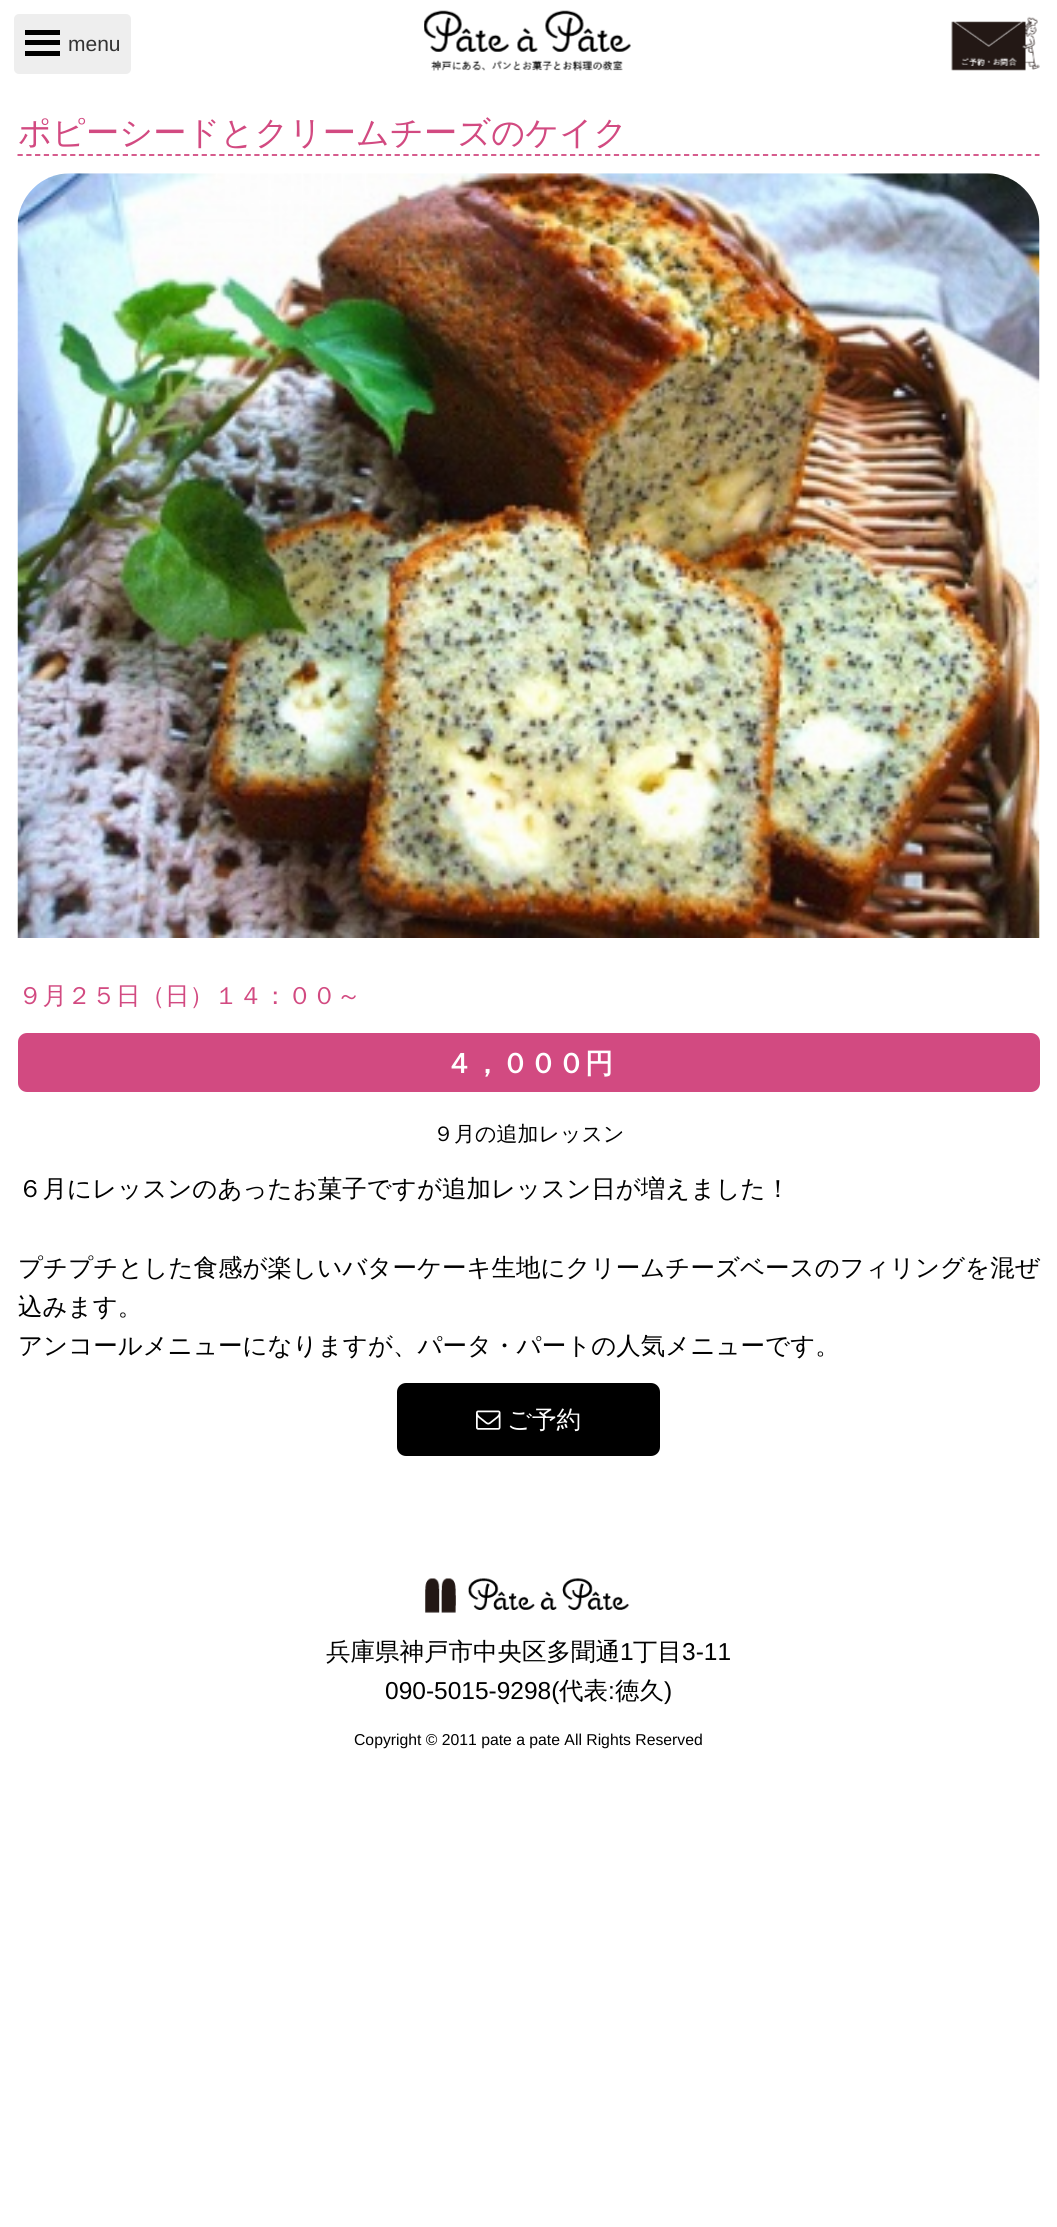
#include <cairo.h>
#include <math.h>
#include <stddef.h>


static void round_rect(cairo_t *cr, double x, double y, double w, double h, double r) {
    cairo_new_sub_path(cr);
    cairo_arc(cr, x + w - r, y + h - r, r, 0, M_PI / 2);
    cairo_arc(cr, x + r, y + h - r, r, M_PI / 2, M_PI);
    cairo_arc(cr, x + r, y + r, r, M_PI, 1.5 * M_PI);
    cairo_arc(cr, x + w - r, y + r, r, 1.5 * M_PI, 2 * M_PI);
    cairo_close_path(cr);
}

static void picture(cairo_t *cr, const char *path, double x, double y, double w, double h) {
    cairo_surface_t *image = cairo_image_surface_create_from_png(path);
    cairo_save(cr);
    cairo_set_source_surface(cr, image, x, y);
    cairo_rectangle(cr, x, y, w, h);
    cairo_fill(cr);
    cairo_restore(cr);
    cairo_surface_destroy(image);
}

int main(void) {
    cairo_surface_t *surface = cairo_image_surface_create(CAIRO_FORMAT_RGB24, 1057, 2227);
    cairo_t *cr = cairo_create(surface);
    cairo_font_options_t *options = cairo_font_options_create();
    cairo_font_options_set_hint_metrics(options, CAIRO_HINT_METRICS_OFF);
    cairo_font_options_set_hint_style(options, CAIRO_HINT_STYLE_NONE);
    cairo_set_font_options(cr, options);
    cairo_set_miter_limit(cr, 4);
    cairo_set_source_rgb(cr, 1, 1, 1);
    cairo_paint(cr);
    cairo_set_source_rgb(cr, 0.933, 0.933, 0.933);
    round_rect(cr, 14, 14, 117, 60, 5);
    cairo_fill(cr);
    cairo_set_source_rgb(cr, 0, 0, 0);
    cairo_rectangle(cr, 25, 30, 35, 5);
    cairo_fill(cr);
    cairo_rectangle(cr, 25, 40, 35, 5);
    cairo_fill(cr);
    cairo_select_font_face(cr, "Liberation Sans", CAIRO_FONT_SLANT_NORMAL, CAIRO_FONT_WEIGHT_NORMAL);
    cairo_set_font_size(cr, 21);
    cairo_set_source_rgb(cr, 0.2, 0.2, 0.2);
    cairo_move_to(cr, 68, 51);
    cairo_show_text(cr, "menu");
    cairo_set_source_rgb(cr, 0, 0, 0);
    cairo_rectangle(cr, 25, 51, 35, 5);
    cairo_fill(cr);
    picture(cr, "img1.png", 424, 10, 207, 61);
    picture(cr, "img2.png", 951, 16, 89, 55);
    cairo_new_path(cr);
    cairo_move_to(cr, 17.5, 155);
    cairo_line_to(cr, 1039.5, 155);
    cairo_set_source_rgb(cr, 0.824, 0.29, 0.506);
    cairo_set_line_width(cr, 1.8);
    cairo_set_dash(cr, (double[]){5.25, 3.52}, 2, 0);
    cairo_stroke(cr);
    cairo_select_font_face(cr, "WenQuanYi Zen Hei Medium", CAIRO_FONT_SLANT_NORMAL, CAIRO_FONT_WEIGHT_NORMAL);
    cairo_set_font_size(cr, 33.25);
    cairo_move_to(cr, 18, 144);
    cairo_show_text(cr, "ポピーシードとクリームチーズのケイク");
    picture(cr, "img3.png", 17, 173, 1023, 765);
    cairo_set_font_size(cr, 24.5);
    cairo_move_to(cr, 18, 1004);
    cairo_show_text(cr, "９月２５日（日）１４：００～");
    round_rect(cr, 18, 1033, 1022, 59, 9);
    cairo_fill(cr);
    cairo_select_font_face(cr, "WenQuanYi Zen Hei", CAIRO_FONT_SLANT_NORMAL, CAIRO_FONT_WEIGHT_BOLD);
    cairo_set_font_size(cr, 28);
    cairo_set_source_rgb(cr, 1, 1, 1);
    cairo_move_to(cr, 445, 1073);
    cairo_show_text(cr, "４，０００円");
    cairo_select_font_face(cr, "WenQuanYi Zen Hei Medium", CAIRO_FONT_SLANT_NORMAL, CAIRO_FONT_WEIGHT_NORMAL);
    cairo_set_font_size(cr, 21);
    cairo_set_source_rgb(cr, 0, 0, 0);
    cairo_move_to(cr, 433, 1141);
    cairo_show_text(cr, "９月の追加レッスン");
    cairo_set_font_size(cr, 24.5);
    cairo_move_to(cr, 18, 1197);
    cairo_show_text(cr, "６月にレッスンのあったお菓子ですが追加レッスン日が増えました！");
    cairo_move_to(cr, 18, 1276);
    cairo_show_text(cr, "プチプチとした食感が楽しいバターケーキ生地にクリームチーズベースのフィリングを混ぜ");
    cairo_move_to(cr, 18, 1315);
    cairo_show_text(cr, "込みます。");
    cairo_move_to(cr, 18, 1354);
    cairo_show_text(cr, "アンコールメニューになりますが、パータ・パートの人気メニューです。");
    round_rect(cr, 397, 1383, 263, 73, 9);
    cairo_fill(cr);
    picture(cr, "img4.png", 476, 1410, 25, 20);
    cairo_set_source_rgb(cr, 1, 1, 1);
    cairo_move_to(cr, 507, 1428);
    cairo_show_text(cr, "ご予約");
    picture(cr, "img5.png", 425, 1578, 205, 35);
    cairo_set_source_rgb(cr, 0, 0, 0);
    cairo_move_to(cr, 326, 1660);
    cairo_show_text(cr, "兵庫県神戸市中央区多聞通");
    cairo_select_font_face(cr, "Liberation Sans", CAIRO_FONT_SLANT_NORMAL, CAIRO_FONT_WEIGHT_NORMAL);
    cairo_move_to(cr, 620, 1660);
    cairo_show_text(cr, "1");
    cairo_select_font_face(cr, "WenQuanYi Zen Hei Medium", CAIRO_FONT_SLANT_NORMAL, CAIRO_FONT_WEIGHT_NORMAL);
    cairo_move_to(cr, 633, 1660);
    cairo_show_text(cr, "丁目");
    cairo_select_font_face(cr, "Liberation Sans", CAIRO_FONT_SLANT_NORMAL, CAIRO_FONT_WEIGHT_NORMAL);
    cairo_move_to(cr, 682, 1660);
    cairo_show_text(cr, "3-11");
    cairo_move_to(cr, 385, 1699);
    cairo_show_text(cr, "090-5015-9298(");
    cairo_select_font_face(cr, "WenQuanYi Zen Hei Medium", CAIRO_FONT_SLANT_NORMAL, CAIRO_FONT_WEIGHT_NORMAL);
    cairo_move_to(cr, 559, 1699);
    cairo_show_text(cr, "代表");
    cairo_select_font_face(cr, "Liberation Sans", CAIRO_FONT_SLANT_NORMAL, CAIRO_FONT_WEIGHT_NORMAL);
    cairo_move_to(cr, 608, 1699);
    cairo_show_text(cr, ":");
    cairo_select_font_face(cr, "WenQuanYi Zen Hei Medium", CAIRO_FONT_SLANT_NORMAL, CAIRO_FONT_WEIGHT_NORMAL);
    cairo_move_to(cr, 615, 1699);
    cairo_show_text(cr, "徳久");
    cairo_select_font_face(cr, "Liberation Sans", CAIRO_FONT_SLANT_NORMAL, CAIRO_FONT_WEIGHT_NORMAL);
    cairo_move_to(cr, 664, 1699);
    cairo_show_text(cr, ")");
    cairo_set_font_size(cr, 15.75);
    cairo_move_to(cr, 354, 1745);
    cairo_show_text(cr, "Copyright © 2011 pate a pate All Rights Reserved");
    cairo_surface_write_to_png(surface, "page.png");
    cairo_font_options_destroy(options);
    cairo_destroy(cr);
    cairo_surface_destroy(surface);
    return 0;
}
